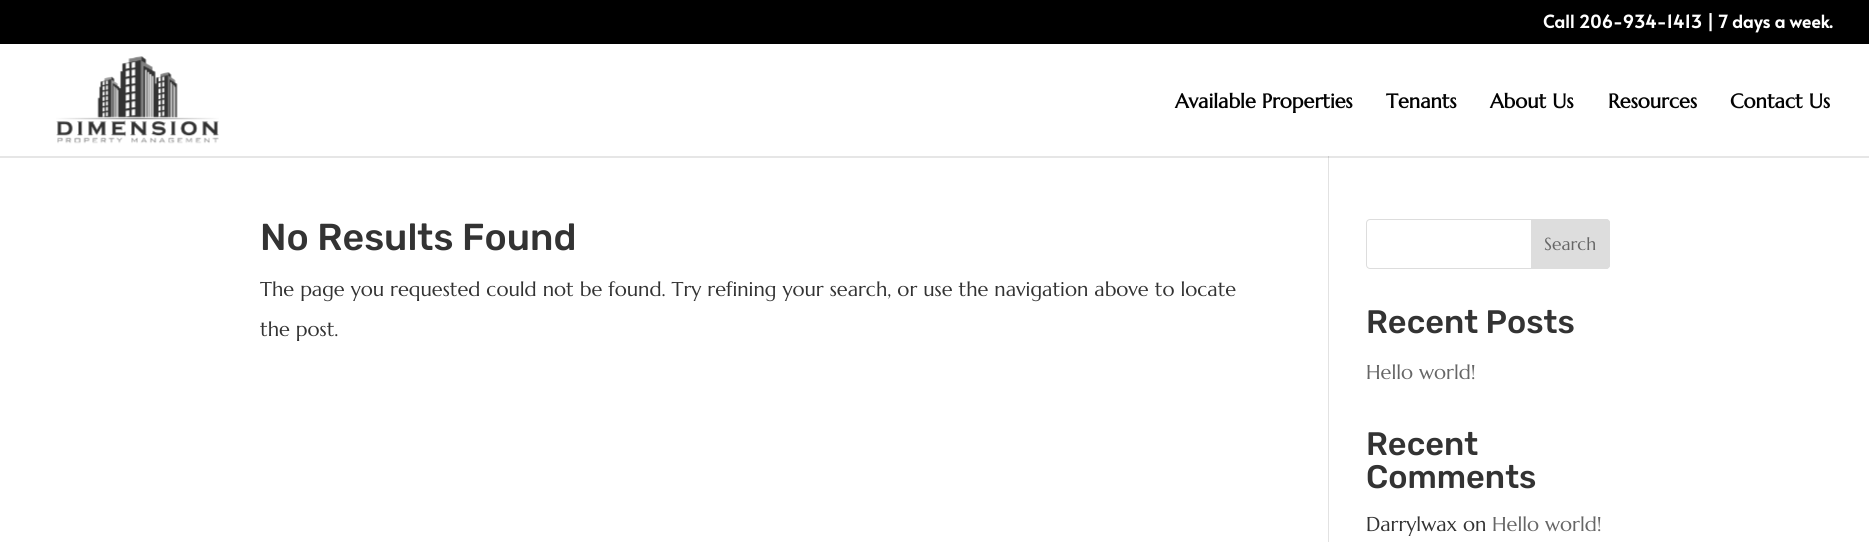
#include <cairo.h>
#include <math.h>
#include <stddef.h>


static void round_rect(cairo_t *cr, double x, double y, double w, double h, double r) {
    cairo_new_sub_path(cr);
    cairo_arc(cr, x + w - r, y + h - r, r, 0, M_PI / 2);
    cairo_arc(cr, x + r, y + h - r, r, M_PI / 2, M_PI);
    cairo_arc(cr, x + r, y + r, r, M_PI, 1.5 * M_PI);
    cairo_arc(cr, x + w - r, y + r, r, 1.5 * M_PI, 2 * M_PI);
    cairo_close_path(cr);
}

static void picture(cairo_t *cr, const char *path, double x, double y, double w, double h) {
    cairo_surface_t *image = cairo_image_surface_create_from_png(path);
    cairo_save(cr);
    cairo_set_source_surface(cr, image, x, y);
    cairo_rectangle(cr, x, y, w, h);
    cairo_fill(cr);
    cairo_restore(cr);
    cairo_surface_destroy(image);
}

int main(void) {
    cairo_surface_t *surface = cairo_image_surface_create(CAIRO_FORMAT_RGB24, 1869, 542);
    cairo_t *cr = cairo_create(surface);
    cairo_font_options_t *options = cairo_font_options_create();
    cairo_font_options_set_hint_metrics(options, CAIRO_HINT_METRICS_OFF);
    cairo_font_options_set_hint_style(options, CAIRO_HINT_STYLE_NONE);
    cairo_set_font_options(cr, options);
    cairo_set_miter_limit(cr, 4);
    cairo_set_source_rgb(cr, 1, 1, 1);
    cairo_paint(cr);
    cairo_set_source_rgb(cr, 0.902, 0.902, 0.902);
    cairo_rectangle(cr, 0, 156, 1869, 2);
    cairo_fill(cr);
    cairo_set_source_rgb(cr, 0, 0, 0);
    cairo_rectangle(cr, 0, 0, 1869, 44);
    cairo_fill(cr);
    cairo_select_font_face(cr, "Alata", CAIRO_FONT_SLANT_NORMAL, CAIRO_FONT_WEIGHT_BOLD);
    cairo_set_font_size(cr, 17.5);
    cairo_set_source_rgb(cr, 1, 1, 1);
    cairo_move_to(cr, 1543, 28);
    cairo_show_text(cr, "Call 206-934-1413 | 7 days a week.");
    picture(cr, "img1.png", 56, 56, 163, 88);
    cairo_select_font_face(cr, "Marcellus", CAIRO_FONT_SLANT_NORMAL, CAIRO_FONT_WEIGHT_BOLD);
    cairo_set_font_size(cr, 20);
    cairo_set_source_rgb(cr, 0.012, 0.012, 0.012);
    cairo_move_to(cr, 1175, 108);
    cairo_show_text(cr, "Available Properties");
    cairo_move_to(cr, 1386, 108);
    cairo_show_text(cr, "Tenants");
    cairo_move_to(cr, 1490, 108);
    cairo_show_text(cr, "About Us");
    cairo_move_to(cr, 1608, 108);
    cairo_show_text(cr, "Resources");
    cairo_move_to(cr, 1730, 108);
    cairo_show_text(cr, "Contact Us");
    cairo_set_source_rgb(cr, 0.886, 0.886, 0.886);
    cairo_rectangle(cr, 1328, 158, 1, 384);
    cairo_fill(cr);
    cairo_set_source_rgb(cr, 0.796, 0.796, 0.796);
    cairo_rectangle(cr, 1328, 156, 1, 2);
    cairo_fill(cr);
    cairo_select_font_face(cr, "Rubik Medium", CAIRO_FONT_SLANT_NORMAL, CAIRO_FONT_WEIGHT_NORMAL);
    cairo_set_font_size(cr, 37.5);
    cairo_set_source_rgb(cr, 0.2, 0.2, 0.2);
    cairo_move_to(cr, 260, 250);
    cairo_show_text(cr, "No Results Found");
    cairo_select_font_face(cr, "Marcellus", CAIRO_FONT_SLANT_NORMAL, CAIRO_FONT_WEIGHT_NORMAL);
    cairo_set_font_size(cr, 20);
    cairo_move_to(cr, 260, 296);
    cairo_show_text(cr, "The page you requested could not be found. Try refining your search, or use the navigation above to locate");
    cairo_move_to(cr, 260, 336);
    cairo_show_text(cr, "the post.");
    round_rect(cr, 1366.5, 219.5, 243, 49, 3.5);
    cairo_set_source_rgb(cr, 0.867, 0.867, 0.867);
    cairo_set_line_width(cr, 1);
    cairo_stroke(cr);
    cairo_new_path(cr);
    cairo_move_to(cr, 1531.5, 219.5);
    cairo_line_to(cr, 1606, 219.5);
    cairo_curve_to(cr, 1608, 219.5, 1609.5, 221, 1609.5, 223);
    cairo_line_to(cr, 1609.5, 265);
    cairo_curve_to(cr, 1609.5, 267, 1608, 268.5, 1606, 268.5);
    cairo_line_to(cr, 1531.5, 268.5);
    cairo_close_path(cr);
    cairo_fill_preserve(cr);
    cairo_stroke(cr);
    cairo_set_font_size(cr, 17.5);
    cairo_set_source_rgb(cr, 0.4, 0.4, 0.4);
    cairo_move_to(cr, 1544, 250);
    cairo_show_text(cr, "Search");
    cairo_select_font_face(cr, "Rubik Medium", CAIRO_FONT_SLANT_NORMAL, CAIRO_FONT_WEIGHT_NORMAL);
    cairo_set_font_size(cr, 32.5);
    cairo_set_source_rgb(cr, 0.2, 0.2, 0.2);
    cairo_move_to(cr, 1366, 333);
    cairo_show_text(cr, "Recent Posts");
    cairo_select_font_face(cr, "Marcellus", CAIRO_FONT_SLANT_NORMAL, CAIRO_FONT_WEIGHT_NORMAL);
    cairo_set_font_size(cr, 20);
    cairo_set_source_rgb(cr, 0.4, 0.4, 0.4);
    cairo_move_to(cr, 1366, 379);
    cairo_show_text(cr, "Hello world!");
    cairo_select_font_face(cr, "Rubik Medium", CAIRO_FONT_SLANT_NORMAL, CAIRO_FONT_WEIGHT_NORMAL);
    cairo_set_font_size(cr, 32.5);
    cairo_set_source_rgb(cr, 0.2, 0.2, 0.2);
    cairo_move_to(cr, 1366, 455);
    cairo_show_text(cr, "Recent");
    cairo_move_to(cr, 1366, 488);
    cairo_show_text(cr, "Comments");
    cairo_select_font_face(cr, "Marcellus", CAIRO_FONT_SLANT_NORMAL, CAIRO_FONT_WEIGHT_NORMAL);
    cairo_set_font_size(cr, 20);
    cairo_move_to(cr, 1366, 531);
    cairo_show_text(cr, "Darrylwax on");
    cairo_set_source_rgb(cr, 0.4, 0.4, 0.4);
    cairo_move_to(cr, 1492, 531);
    cairo_show_text(cr, "Hello world!");
    cairo_surface_write_to_png(surface, "page.png");
    cairo_font_options_destroy(options);
    cairo_destroy(cr);
    cairo_surface_destroy(surface);
    return 0;
}
